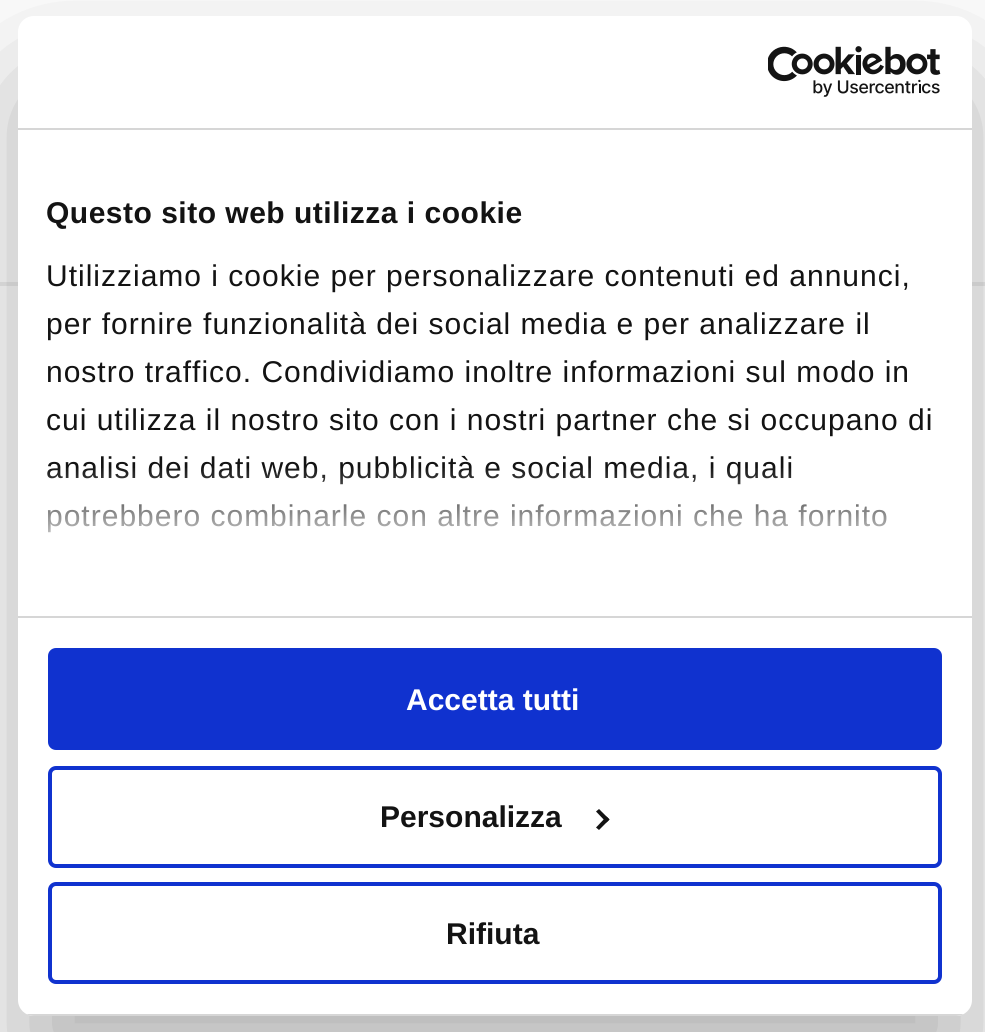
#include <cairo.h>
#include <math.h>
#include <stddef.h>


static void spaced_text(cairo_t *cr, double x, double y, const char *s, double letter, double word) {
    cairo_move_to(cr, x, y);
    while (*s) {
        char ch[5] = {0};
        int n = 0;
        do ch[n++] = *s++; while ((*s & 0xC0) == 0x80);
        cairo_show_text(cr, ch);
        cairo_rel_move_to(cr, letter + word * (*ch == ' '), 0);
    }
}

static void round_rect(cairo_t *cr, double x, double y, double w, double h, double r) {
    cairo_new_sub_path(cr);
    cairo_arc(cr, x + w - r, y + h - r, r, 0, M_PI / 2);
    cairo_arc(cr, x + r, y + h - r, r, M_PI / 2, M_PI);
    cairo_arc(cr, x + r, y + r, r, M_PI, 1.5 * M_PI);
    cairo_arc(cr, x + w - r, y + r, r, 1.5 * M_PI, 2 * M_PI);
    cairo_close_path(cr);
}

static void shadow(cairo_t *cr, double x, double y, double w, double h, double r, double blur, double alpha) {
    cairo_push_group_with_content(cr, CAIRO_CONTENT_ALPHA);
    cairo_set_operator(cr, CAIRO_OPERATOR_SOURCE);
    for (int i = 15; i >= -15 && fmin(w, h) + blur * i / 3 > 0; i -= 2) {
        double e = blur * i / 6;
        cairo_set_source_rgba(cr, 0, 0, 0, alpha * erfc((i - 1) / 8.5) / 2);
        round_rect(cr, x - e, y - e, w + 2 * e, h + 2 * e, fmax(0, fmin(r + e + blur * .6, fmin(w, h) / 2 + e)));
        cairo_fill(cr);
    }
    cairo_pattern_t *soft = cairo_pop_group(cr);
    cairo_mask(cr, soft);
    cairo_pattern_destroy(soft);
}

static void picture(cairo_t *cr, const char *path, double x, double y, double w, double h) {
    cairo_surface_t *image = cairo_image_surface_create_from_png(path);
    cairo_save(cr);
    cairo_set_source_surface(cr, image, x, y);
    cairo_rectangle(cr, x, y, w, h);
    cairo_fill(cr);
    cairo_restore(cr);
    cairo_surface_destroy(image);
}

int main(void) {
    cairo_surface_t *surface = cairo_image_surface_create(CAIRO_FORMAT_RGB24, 985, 1032);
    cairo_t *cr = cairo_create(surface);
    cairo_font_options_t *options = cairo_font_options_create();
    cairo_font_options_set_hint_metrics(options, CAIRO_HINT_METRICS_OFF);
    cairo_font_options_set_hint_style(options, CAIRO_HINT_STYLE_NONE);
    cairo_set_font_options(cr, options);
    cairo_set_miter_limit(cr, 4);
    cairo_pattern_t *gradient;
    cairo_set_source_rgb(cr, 1, 1, 1);
    cairo_paint(cr);
    cairo_set_source_rgb(cr, 0.929, 0.929, 0.929);
    cairo_rectangle(cr, 0, 282, 985, 4);
    cairo_fill(cr);
    cairo_set_source_rgb(cr, 0, 0, 0);
    shadow(cr, 18, 80, 954, 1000, 16, 68, 0.3);
    cairo_set_source_rgb(cr, 1, 1, 1);
    round_rect(cr, 18, 16, 954, 1000, 16);
    cairo_fill(cr);
    cairo_set_source_rgb(cr, 0.839, 0.839, 0.839);
    cairo_rectangle(cr, 18, 128, 954, 2);
    cairo_fill(cr);
    picture(cr, "img1.png", 768, 46, 173, 51);
    cairo_rectangle(cr, 18, 616, 954, 2);
    cairo_fill(cr);
    cairo_select_font_face(cr, "Liberation Sans", CAIRO_FONT_SLANT_NORMAL, CAIRO_FONT_WEIGHT_BOLD);
    cairo_set_font_size(cr, 30);
    cairo_set_source_rgb(cr, 0.078, 0.078, 0.078);
    spaced_text(cr, 46, 223, "Questo sito web utilizza i cookie", 0.5, 0);
    cairo_select_font_face(cr, "Liberation Sans", CAIRO_FONT_SLANT_NORMAL, CAIRO_FONT_WEIGHT_NORMAL);
    spaced_text(cr, 46, 286, "Utilizziamo i cookie per personalizzare contenuti ed annunci,", 1, 0);
    spaced_text(cr, 46, 334, "per fornire funzionalità dei social media e per analizzare il", 1, 0);
    spaced_text(cr, 46, 382, "nostro traffico. Condividiamo inoltre informazioni sul modo in", 1, 0);
    spaced_text(cr, 46, 430, "cui utilizza il nostro sito con i nostri partner che si occupano di", 1, 0);
    spaced_text(cr, 46, 478, "analisi dei dati web, pubblicità e social media, i quali", 1, 0);
    spaced_text(cr, 46, 526, "potrebbero combinarle con altre informazioni che ha fornito", 1, 0);
    gradient = cairo_pattern_create_linear(481, 616, 481, 466);
    cairo_pattern_add_color_stop_rgba(gradient, 0, 1, 1, 1, 1);
    cairo_pattern_add_color_stop_rgba(gradient, 0.5, 1, 1, 1, 0.8);
    cairo_pattern_add_color_stop_rgba(gradient, 1, 1, 1, 1, 0);
    cairo_set_source(cr, gradient);
    cairo_pattern_destroy(gradient);
    cairo_rectangle(cr, 47, 468, 840, 65);
    cairo_fill(cr);
    cairo_save(cr);
    round_rect(cr, 18, 16, 954, 1000, 16);
    cairo_clip(cr);
    cairo_set_source_rgb(cr, 0.839, 0.839, 0.839);
    cairo_rectangle(cr, 18, 1014, 954, 2);
    cairo_fill(cr);
    cairo_restore(cr);
    cairo_set_source_rgb(cr, 0.063, 0.196, 0.812);
    round_rect(cr, 50, 650, 890, 98, 6);
    cairo_fill_preserve(cr);
    cairo_set_line_width(cr, 4);
    cairo_stroke(cr);
    cairo_select_font_face(cr, "Liberation Sans", CAIRO_FONT_SLANT_NORMAL, CAIRO_FONT_WEIGHT_BOLD);
    cairo_set_source_rgb(cr, 1, 1, 1);
    cairo_move_to(cr, 406, 710);
    cairo_show_text(cr, "Accetta tutti");
    round_rect(cr, 50, 768, 890, 98, 6);
    cairo_set_source_rgb(cr, 0.063, 0.196, 0.812);
    cairo_stroke(cr);
    cairo_set_source_rgb(cr, 0.078, 0.078, 0.078);
    cairo_move_to(cr, 380, 827);
    cairo_show_text(cr, "Personalizza");
    cairo_new_path(cr);
    cairo_move_to(cr, 599, 809);
    cairo_line_to(cr, 609.5, 819.5);
    cairo_line_to(cr, 606.5, 822.5);
    cairo_line_to(cr, 596, 811.5);
    cairo_close_path(cr);
    cairo_fill(cr);
    cairo_new_path(cr);
    cairo_move_to(cr, 606.5, 816.5);
    cairo_line_to(cr, 609.5, 819.5);
    cairo_line_to(cr, 599, 830);
    cairo_line_to(cr, 596, 827.5);
    cairo_close_path(cr);
    cairo_fill(cr);
    round_rect(cr, 50, 884, 890, 98, 6);
    cairo_set_source_rgb(cr, 0.063, 0.196, 0.812);
    cairo_stroke(cr);
    cairo_set_source_rgb(cr, 0.078, 0.078, 0.078);
    cairo_move_to(cr, 446, 944);
    cairo_show_text(cr, "Rifiuta");
    cairo_surface_write_to_png(surface, "page.png");
    cairo_font_options_destroy(options);
    cairo_destroy(cr);
    cairo_surface_destroy(surface);
    return 0;
}
